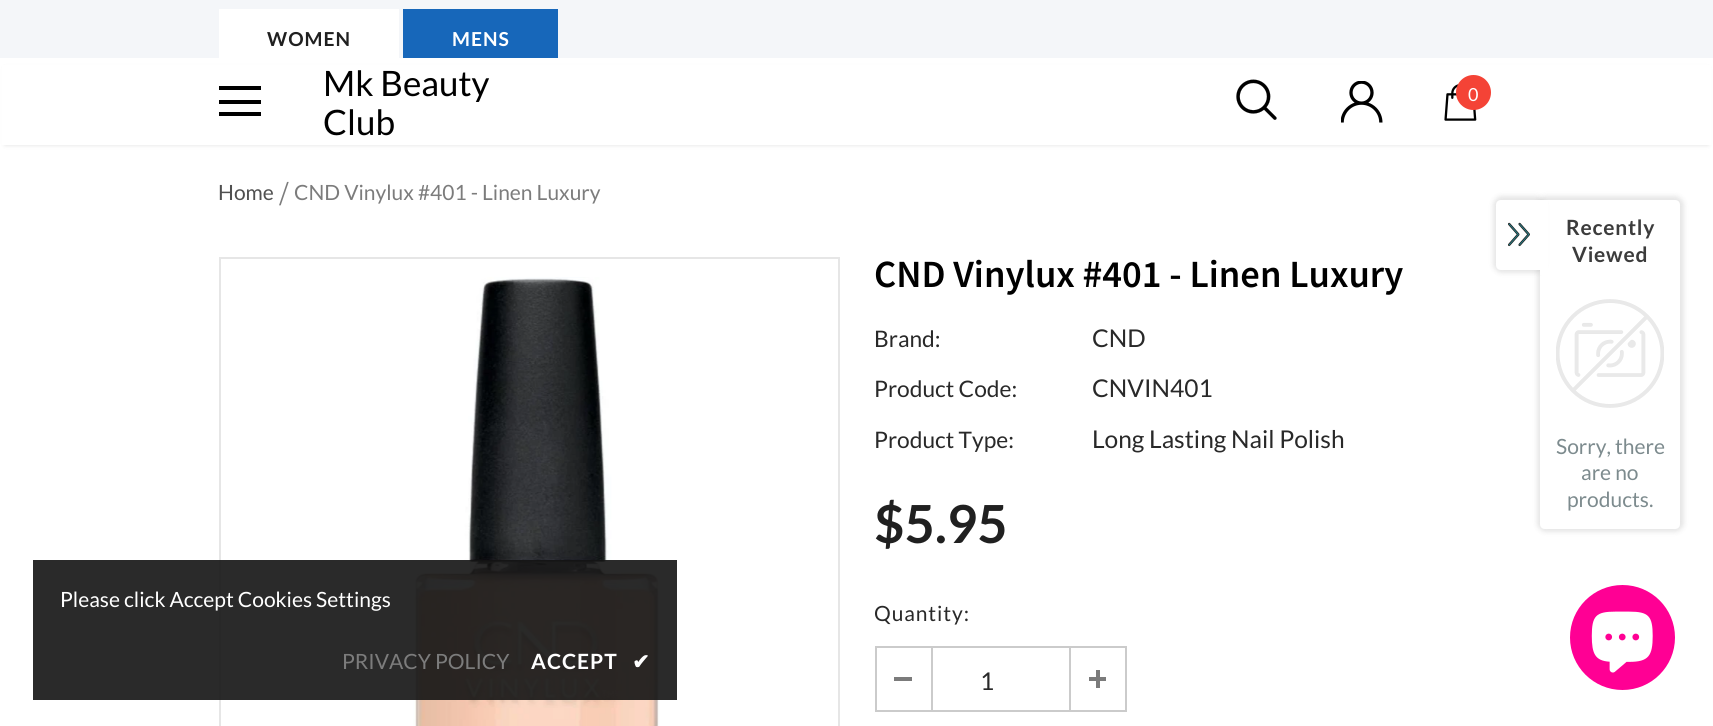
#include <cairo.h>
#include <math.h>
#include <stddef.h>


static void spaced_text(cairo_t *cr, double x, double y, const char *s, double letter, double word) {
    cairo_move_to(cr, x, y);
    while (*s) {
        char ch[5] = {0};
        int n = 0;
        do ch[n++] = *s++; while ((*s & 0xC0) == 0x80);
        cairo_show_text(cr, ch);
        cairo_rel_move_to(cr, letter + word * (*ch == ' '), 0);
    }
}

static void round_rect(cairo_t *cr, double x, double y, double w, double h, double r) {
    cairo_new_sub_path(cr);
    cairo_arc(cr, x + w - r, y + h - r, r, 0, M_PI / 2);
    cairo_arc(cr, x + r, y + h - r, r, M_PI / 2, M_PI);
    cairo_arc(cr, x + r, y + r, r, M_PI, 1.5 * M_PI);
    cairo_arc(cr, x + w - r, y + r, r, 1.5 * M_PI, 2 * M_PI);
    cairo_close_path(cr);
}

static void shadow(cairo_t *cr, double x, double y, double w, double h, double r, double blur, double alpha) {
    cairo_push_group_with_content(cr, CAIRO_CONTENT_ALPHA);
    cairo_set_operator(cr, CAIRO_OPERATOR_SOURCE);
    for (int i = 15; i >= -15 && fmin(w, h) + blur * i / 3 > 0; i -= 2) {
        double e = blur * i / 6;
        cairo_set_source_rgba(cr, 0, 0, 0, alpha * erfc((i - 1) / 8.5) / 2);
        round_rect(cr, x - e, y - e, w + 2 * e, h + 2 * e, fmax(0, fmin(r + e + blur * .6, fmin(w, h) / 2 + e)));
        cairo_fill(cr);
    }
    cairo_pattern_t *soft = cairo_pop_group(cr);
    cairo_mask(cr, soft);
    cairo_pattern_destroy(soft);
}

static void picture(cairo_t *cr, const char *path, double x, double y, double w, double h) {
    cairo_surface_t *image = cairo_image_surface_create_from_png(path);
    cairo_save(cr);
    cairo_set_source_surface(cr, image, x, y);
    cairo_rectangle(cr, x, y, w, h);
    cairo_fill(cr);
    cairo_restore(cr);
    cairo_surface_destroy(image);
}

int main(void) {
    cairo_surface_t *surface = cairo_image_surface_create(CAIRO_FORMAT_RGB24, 1713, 726);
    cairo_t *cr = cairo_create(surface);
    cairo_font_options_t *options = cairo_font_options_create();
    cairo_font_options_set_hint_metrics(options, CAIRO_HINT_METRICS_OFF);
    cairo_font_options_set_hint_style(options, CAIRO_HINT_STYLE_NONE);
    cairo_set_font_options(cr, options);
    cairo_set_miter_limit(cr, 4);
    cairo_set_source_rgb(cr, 1, 1, 1);
    cairo_paint(cr);
    cairo_set_source_rgb(cr, 0.957, 0.961, 0.976);
    cairo_rectangle(cr, 0, 0, 1713, 58);
    cairo_fill(cr);
    cairo_set_source_rgb(cr, 1, 1, 1);
    cairo_rectangle(cr, 219, 9, 180, 49);
    cairo_fill(cr);
    cairo_select_font_face(cr, "Lato", CAIRO_FONT_SLANT_NORMAL, CAIRO_FONT_WEIGHT_BOLD);
    cairo_set_font_size(cr, 19.25);
    cairo_set_source_rgb(cr, 0.125, 0.125, 0.125);
    spaced_text(cr, 267, 46, "WOMEN", 1, 0);
    cairo_set_source_rgb(cr, 0.09, 0.404, 0.729);
    cairo_rectangle(cr, 403, 9, 155, 49);
    cairo_fill(cr);
    cairo_set_source_rgb(cr, 1, 1, 1);
    spaced_text(cr, 452, 46, "MENS", 1, 0);
    cairo_set_source_rgb(cr, 0, 0, 0);
    shadow(cr, 5, 68, 1703, 77, 0, 2.5, 0.12);
    cairo_set_source_rgb(cr, 1, 1, 1);
    cairo_rectangle(cr, 2, 65, 1709, 80);
    cairo_fill(cr);
    cairo_set_source_rgb(cr, 0, 0, 0);
    cairo_rectangle(cr, 219, 86, 42, 4);
    cairo_fill(cr);
    cairo_rectangle(cr, 219, 100, 42, 4);
    cairo_fill(cr);
    cairo_rectangle(cr, 219, 112, 42, 4);
    cairo_fill(cr);
    cairo_select_font_face(cr, "Lato", CAIRO_FONT_SLANT_NORMAL, CAIRO_FONT_WEIGHT_NORMAL);
    cairo_set_font_size(cr, 35);
    cairo_move_to(cr, 323, 96);
    cairo_show_text(cr, "Mk Beauty");
    cairo_move_to(cr, 323, 135);
    cairo_show_text(cr, "Club");
    picture(cr, "img1.png", 1236, 79, 41, 41);
    picture(cr, "img2.png", 1341, 81, 42, 42);
    picture(cr, "img3.png", 1444, 84, 33, 37);
    cairo_set_source_rgb(cr, 0.957, 0.263, 0.212);
    cairo_arc(cr, 1473.5, 92.5, 17.5, 0, 2 * M_PI);
    cairo_fill(cr);
    cairo_set_font_size(cr, 18);
    cairo_set_source_rgb(cr, 1, 1, 1);
    cairo_move_to(cr, 1468, 101);
    cairo_show_text(cr, "0");
    cairo_set_font_size(cr, 21);
    cairo_set_source_rgb(cr, 0.314, 0.314, 0.314);
    cairo_move_to(cr, 218, 200);
    cairo_show_text(cr, "Home");
    cairo_select_font_face(cr, "Liberation Serif", CAIRO_FONT_SLANT_NORMAL, CAIRO_FONT_WEIGHT_NORMAL);
    cairo_set_font_size(cr, 35);
    cairo_set_source_rgb(cr, 0.486, 0.486, 0.486);
    cairo_move_to(cr, 279, 205);
    cairo_show_text(cr, "/");
    cairo_select_font_face(cr, "Lato", CAIRO_FONT_SLANT_NORMAL, CAIRO_FONT_WEIGHT_NORMAL);
    cairo_set_font_size(cr, 21);
    cairo_move_to(cr, 294, 200);
    cairo_show_text(cr, "CND Vinylux #401 - Linen Luxury");
    cairo_rectangle(cr, 220, 258, 619, 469);
    cairo_set_source_rgb(cr, 0.902, 0.902, 0.902);
    cairo_stroke(cr);
    picture(cr, "img4.png", 413, 277, 247, 449);
    cairo_select_font_face(cr, "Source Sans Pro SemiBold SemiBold", CAIRO_FONT_SLANT_NORMAL, CAIRO_FONT_WEIGHT_NORMAL);
    cairo_set_font_size(cr, 38.5);
    cairo_set_source_rgb(cr, 0, 0, 0);
    cairo_move_to(cr, 874, 287);
    cairo_show_text(cr, "CND Vinylux #401 - Linen Luxury");
    cairo_select_font_face(cr, "Lato", CAIRO_FONT_SLANT_NORMAL, CAIRO_FONT_WEIGHT_NORMAL);
    cairo_set_font_size(cr, 22.75);
    cairo_set_source_rgb(cr, 0.161, 0.161, 0.161);
    cairo_move_to(cr, 874, 347);
    cairo_show_text(cr, "Brand:");
    cairo_set_font_size(cr, 24.5);
    cairo_move_to(cr, 1092, 347);
    cairo_show_text(cr, "CND");
    cairo_set_font_size(cr, 22.75);
    cairo_move_to(cr, 874, 397);
    cairo_show_text(cr, "Product Code:");
    cairo_set_font_size(cr, 24.5);
    cairo_move_to(cr, 1092, 397);
    cairo_show_text(cr, "CNVIN401");
    cairo_set_font_size(cr, 22.75);
    cairo_move_to(cr, 874, 448);
    cairo_show_text(cr, "Product Type:");
    cairo_set_font_size(cr, 24.5);
    cairo_move_to(cr, 1092, 448);
    cairo_show_text(cr, "Long Lasting Nail Polish");
    cairo_select_font_face(cr, "Lato", CAIRO_FONT_SLANT_NORMAL, CAIRO_FONT_WEIGHT_BOLD);
    cairo_set_font_size(cr, 52.5);
    cairo_set_source_rgb(cr, 0.125, 0.125, 0.125);
    cairo_move_to(cr, 874, 543);
    cairo_show_text(cr, "$5.95");
    cairo_select_font_face(cr, "Lato", CAIRO_FONT_SLANT_NORMAL, CAIRO_FONT_WEIGHT_NORMAL);
    cairo_set_font_size(cr, 21);
    cairo_set_source_rgb(cr, 0.161, 0.161, 0.161);
    spaced_text(cr, 874, 621, "Quantity:", 0.9, 0);
    cairo_rectangle(cr, 876, 647, 250, 64);
    cairo_set_source_rgb(cr, 0.796, 0.796, 0.796);
    cairo_stroke(cr);
    cairo_rectangle(cr, 931, 648, 2, 63);
    cairo_fill(cr);
    cairo_set_source_rgb(cr, 0.482, 0.482, 0.482);
    cairo_rectangle(cr, 894, 677, 18, 4);
    cairo_fill(cr);
    cairo_set_font_size(cr, 24.5);
    cairo_set_source_rgb(cr, 0.161, 0.161, 0.161);
    cairo_move_to(cr, 980, 690);
    cairo_show_text(cr, "1");
    cairo_set_source_rgb(cr, 0.796, 0.796, 0.796);
    cairo_rectangle(cr, 1069, 648, 2, 63);
    cairo_fill(cr);
    cairo_set_source_rgb(cr, 0.482, 0.482, 0.482);
    cairo_rectangle(cr, 1089, 677, 17, 4);
    cairo_fill(cr);
    cairo_rectangle(cr, 1096, 670, 4, 18);
    cairo_fill(cr);
    cairo_set_source_rgba(cr, 0.078, 0.078, 0.078, 0.9);
    cairo_rectangle(cr, 33, 560, 644, 140);
    cairo_fill(cr);
    cairo_set_font_size(cr, 21);
    cairo_set_source_rgb(cr, 1, 1, 1);
    cairo_move_to(cr, 60, 607);
    cairo_show_text(cr, "Please click Accept Cookies Settings");
    cairo_set_source_rgb(cr, 0.486, 0.486, 0.486);
    cairo_move_to(cr, 342, 669);
    cairo_show_text(cr, "PRIVACY POLICY");
    cairo_select_font_face(cr, "Lato", CAIRO_FONT_SLANT_NORMAL, CAIRO_FONT_WEIGHT_BOLD);
    cairo_set_source_rgb(cr, 1, 1, 1);
    spaced_text(cr, 531, 669, "ACCEPT", 1, 0);
    cairo_select_font_face(cr, "DejaVu Sans", CAIRO_FONT_SLANT_NORMAL, CAIRO_FONT_WEIGHT_BOLD);
    spaced_text(cr, 632, 669, "✔", 1, 0);
    cairo_set_source_rgb(cr, 0, 0, 0);
    shadow(cr, 1537, 196, 147, 336, 9, 2.5, 0.1);
    cairo_set_source_rgb(cr, 1, 1, 1);
    cairo_new_path(cr);
    cairo_move_to(cr, 1540, 200);
    cairo_line_to(cr, 1675, 200);
    cairo_curve_to(cr, 1678, 200, 1680, 202, 1680, 205);
    cairo_line_to(cr, 1680, 524);
    cairo_curve_to(cr, 1680, 527, 1678, 529, 1675, 529);
    cairo_line_to(cr, 1545, 529);
    cairo_curve_to(cr, 1542, 529, 1540, 527, 1540, 524);
    cairo_close_path(cr);
    cairo_fill(cr);
    cairo_set_source_rgb(cr, 0, 0, 0);
    shadow(cr, 1493, 196, 52, 77, 9, 2.5, 0.1);
    cairo_set_source_rgb(cr, 1, 1, 1);
    cairo_new_path(cr);
    cairo_move_to(cr, 1501, 200);
    cairo_line_to(cr, 1542, 200);
    cairo_line_to(cr, 1542, 270);
    cairo_line_to(cr, 1501, 270);
    cairo_curve_to(cr, 1498, 270, 1496, 268, 1496, 265);
    cairo_line_to(cr, 1496, 205);
    cairo_curve_to(cr, 1496, 202, 1498, 200, 1501, 200);
    cairo_close_path(cr);
    cairo_fill(cr);
    picture(cr, "img5.png", 1508, 222, 22, 25);
    cairo_rectangle(cr, 1540, 200, 8, 75);
    cairo_fill(cr);
    cairo_select_font_face(cr, "Lato", CAIRO_FONT_SLANT_NORMAL, CAIRO_FONT_WEIGHT_BOLD);
    cairo_set_source_rgb(cr, 0.235, 0.235, 0.235);
    spaced_text(cr, 1566, 235, "Recently", 0.75, 0);
    spaced_text(cr, 1572, 262, "Viewed", 0.75, 0);
    picture(cr, "img6.png", 1556, 299, 108, 109);
    cairo_select_font_face(cr, "Lato", CAIRO_FONT_SLANT_NORMAL, CAIRO_FONT_WEIGHT_NORMAL);
    cairo_set_source_rgb(cr, 0.49, 0.545, 0.557);
    cairo_move_to(cr, 1556, 454);
    cairo_show_text(cr, "Sorry, there");
    cairo_move_to(cr, 1581, 480);
    cairo_show_text(cr, "are no");
    cairo_move_to(cr, 1567, 507);
    cairo_show_text(cr, "products.");
    cairo_set_source_rgb(cr, 1, 0, 0.58);
    cairo_new_path(cr);
    cairo_arc(cr, 1622.5, 637.5, 52.5, 0, 2 * M_PI);
    cairo_fill(cr);
    picture(cr, "img7.png", 1591, 611, 62, 62);
    cairo_surface_write_to_png(surface, "page.png");
    cairo_font_options_destroy(options);
    cairo_destroy(cr);
    cairo_surface_destroy(surface);
    return 0;
}
